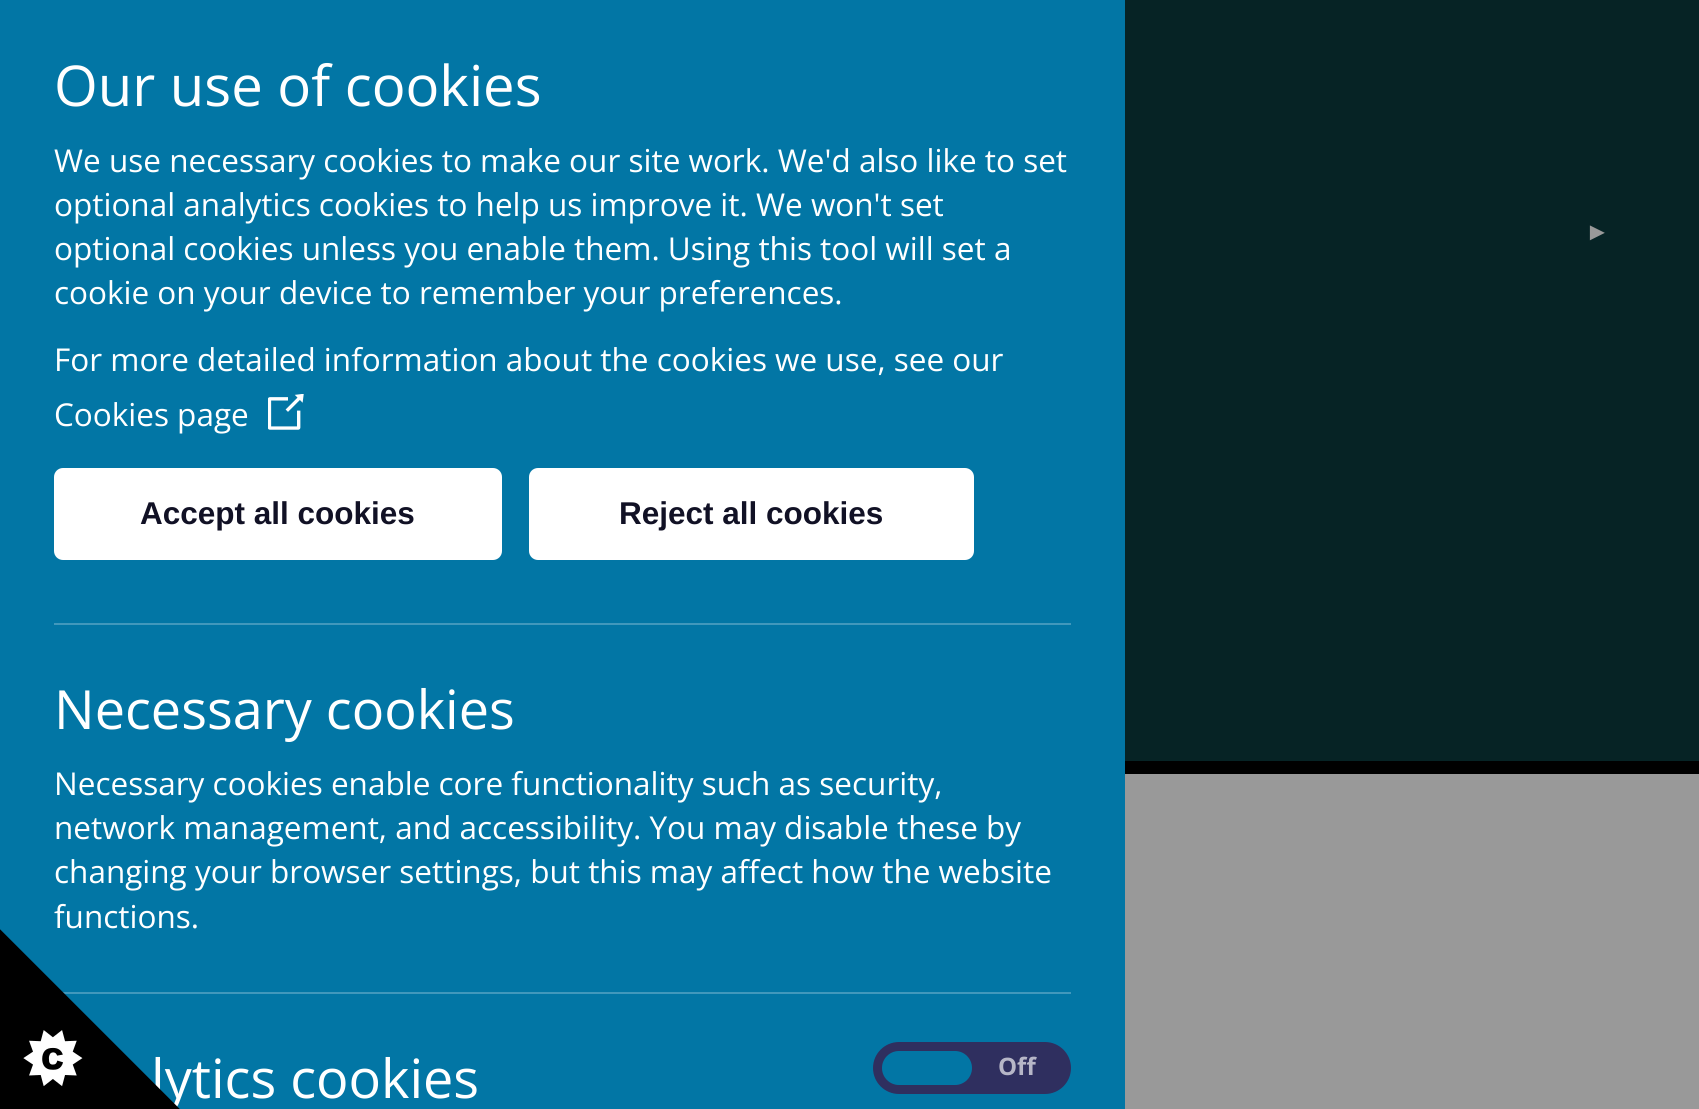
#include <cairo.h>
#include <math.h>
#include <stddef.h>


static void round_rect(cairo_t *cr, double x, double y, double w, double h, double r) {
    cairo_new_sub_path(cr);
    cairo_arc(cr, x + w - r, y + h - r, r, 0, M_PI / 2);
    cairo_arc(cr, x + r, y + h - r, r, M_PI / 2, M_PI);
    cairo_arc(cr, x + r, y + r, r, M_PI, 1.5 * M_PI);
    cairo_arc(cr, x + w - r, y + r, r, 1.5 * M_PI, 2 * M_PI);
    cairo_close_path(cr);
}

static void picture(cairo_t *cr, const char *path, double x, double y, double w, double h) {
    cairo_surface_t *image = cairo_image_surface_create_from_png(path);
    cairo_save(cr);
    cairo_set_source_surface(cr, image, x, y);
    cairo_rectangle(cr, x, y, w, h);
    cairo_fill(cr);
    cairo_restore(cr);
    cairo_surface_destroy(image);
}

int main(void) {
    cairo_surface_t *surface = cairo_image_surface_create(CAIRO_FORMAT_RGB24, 1699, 1109);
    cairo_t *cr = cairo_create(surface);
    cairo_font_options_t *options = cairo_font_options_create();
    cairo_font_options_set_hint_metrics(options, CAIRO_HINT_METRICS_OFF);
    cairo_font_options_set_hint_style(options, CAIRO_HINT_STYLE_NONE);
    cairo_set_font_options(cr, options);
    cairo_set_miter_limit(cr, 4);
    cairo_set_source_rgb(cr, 0.6, 0.6, 0.6);
    cairo_paint(cr);
    cairo_set_source_rgb(cr, 0.008, 0.463, 0.647);
    cairo_rectangle(cr, 0, 0, 1125, 1109);
    cairo_fill(cr);
    cairo_select_font_face(cr, "Open Sans", CAIRO_FONT_SLANT_NORMAL, CAIRO_FONT_WEIGHT_NORMAL);
    cairo_set_font_size(cr, 56.25);
    cairo_set_source_rgb(cr, 1, 1, 1);
    cairo_move_to(cr, 54, 106);
    cairo_show_text(cr, "Our use of cookies");
    cairo_set_font_size(cr, 31.5);
    cairo_move_to(cr, 54, 172);
    cairo_show_text(cr, "We use necessary cookies to make our site work. We'd also like to set");
    cairo_move_to(cr, 54, 216);
    cairo_show_text(cr, "optional analytics cookies to help us improve it. We won't set");
    cairo_move_to(cr, 54, 260);
    cairo_show_text(cr, "optional cookies unless you enable them. Using this tool will set a");
    cairo_move_to(cr, 54, 304);
    cairo_show_text(cr, "cookie on your device to remember your preferences.");
    cairo_move_to(cr, 54, 371);
    cairo_show_text(cr, "For more detailed information about the cookies we use, see our");
    cairo_move_to(cr, 54, 426);
    cairo_show_text(cr, "Cookies page");
    picture(cr, "img1.png", 268, 394, 36, 36);
    round_rect(cr, 56.5, 470.5, 443, 87, 6.5);
    cairo_fill_preserve(cr);
    cairo_set_line_width(cr, 5);
    cairo_stroke(cr);
    cairo_select_font_face(cr, "Liberation Sans", CAIRO_FONT_SLANT_NORMAL, CAIRO_FONT_WEIGHT_BOLD);
    cairo_set_source_rgb(cr, 0.067, 0.067, 0.145);
    cairo_move_to(cr, 140, 524);
    cairo_show_text(cr, "Accept all cookies");
    cairo_set_source_rgb(cr, 1, 1, 1);
    round_rect(cr, 531.5, 470.5, 440, 87, 6.5);
    cairo_fill_preserve(cr);
    cairo_stroke(cr);
    cairo_set_source_rgb(cr, 0.067, 0.067, 0.145);
    cairo_move_to(cr, 619, 524);
    cairo_show_text(cr, "Reject all cookies");
    cairo_set_source_rgb(cr, 0.255, 0.596, 0.737);
    cairo_rectangle(cr, 54, 623, 1017, 2);
    cairo_fill(cr);
    cairo_select_font_face(cr, "Open Sans", CAIRO_FONT_SLANT_NORMAL, CAIRO_FONT_WEIGHT_NORMAL);
    cairo_set_font_size(cr, 54);
    cairo_set_source_rgb(cr, 1, 1, 1);
    cairo_move_to(cr, 54, 729);
    cairo_show_text(cr, "Necessary cookies");
    cairo_set_font_size(cr, 31.5);
    cairo_move_to(cr, 54, 795);
    cairo_show_text(cr, "Necessary cookies enable core functionality such as security,");
    cairo_move_to(cr, 54, 839);
    cairo_show_text(cr, "network management, and accessibility. You may disable these by");
    cairo_move_to(cr, 54, 883);
    cairo_show_text(cr, "changing your browser settings, but this may affect how the website");
    cairo_move_to(cr, 54, 928);
    cairo_show_text(cr, "functions.");
    cairo_set_source_rgb(cr, 0.255, 0.596, 0.737);
    cairo_rectangle(cr, 54, 992, 1017, 2);
    cairo_fill(cr);
    cairo_set_font_size(cr, 54);
    cairo_set_source_rgb(cr, 1, 1, 1);
    cairo_move_to(cr, 151, 1098);
    cairo_show_text(cr, "lytics cookies");
    cairo_set_source_rgb(cr, 0.184, 0.184, 0.373);
    round_rect(cr, 877.5, 1046.5, 189, 43, 21.5);
    cairo_fill_preserve(cr);
    cairo_set_line_width(cr, 9);
    cairo_stroke(cr);
    cairo_set_source_rgb(cr, 0.008, 0.463, 0.647);
    round_rect(cr, 882, 1051, 90, 34, 17);
    cairo_fill(cr);
    cairo_select_font_face(cr, "Open Sans", CAIRO_FONT_SLANT_NORMAL, CAIRO_FONT_WEIGHT_BOLD);
    cairo_set_font_size(cr, 24);
    cairo_set_source_rgb(cr, 0.714, 0.714, 0.78);
    cairo_move_to(cr, 998, 1075);
    cairo_show_text(cr, "Off");
    picture(cr, "img2.png", 0, 929, 180, 180);
    cairo_set_source_rgb(cr, 0.027, 0.137, 0.145);
    cairo_rectangle(cr, 1125, 0, 574, 761);
    cairo_fill(cr);
    cairo_set_source_rgb(cr, 0, 0, 0);
    cairo_rectangle(cr, 1125, 761, 574, 13);
    cairo_fill(cr);
    cairo_select_font_face(cr, "Liberation Sans", CAIRO_FONT_SLANT_NORMAL, CAIRO_FONT_WEIGHT_NORMAL);
    cairo_set_font_size(cr, 25);
    cairo_set_source_rgb(cr, 0.6, 0.6, 0.6);
    cairo_move_to(cr, 1585, 240);
    cairo_show_text(cr, "►");
    cairo_surface_write_to_png(surface, "page.png");
    cairo_font_options_destroy(options);
    cairo_destroy(cr);
    cairo_surface_destroy(surface);
    return 0;
}
